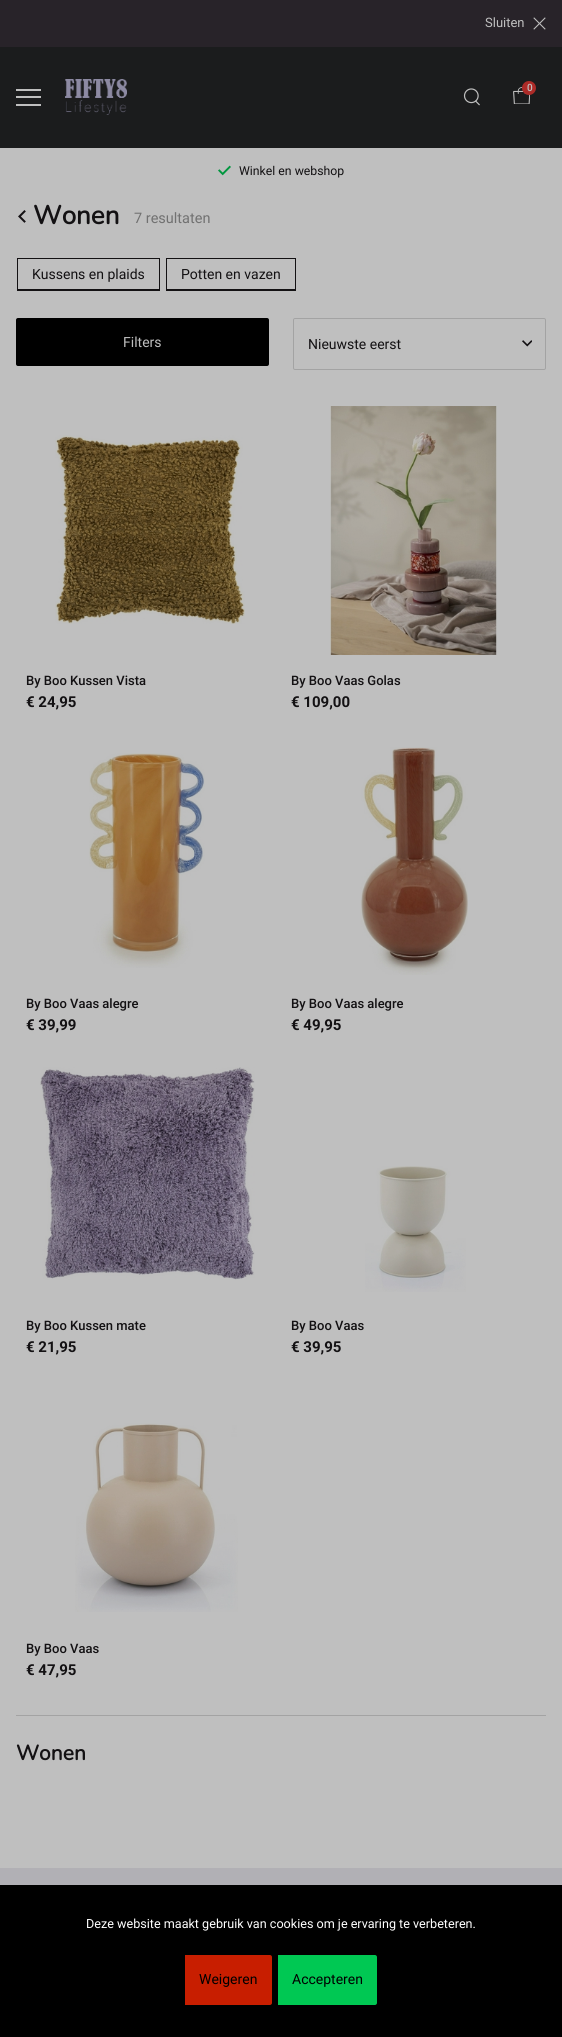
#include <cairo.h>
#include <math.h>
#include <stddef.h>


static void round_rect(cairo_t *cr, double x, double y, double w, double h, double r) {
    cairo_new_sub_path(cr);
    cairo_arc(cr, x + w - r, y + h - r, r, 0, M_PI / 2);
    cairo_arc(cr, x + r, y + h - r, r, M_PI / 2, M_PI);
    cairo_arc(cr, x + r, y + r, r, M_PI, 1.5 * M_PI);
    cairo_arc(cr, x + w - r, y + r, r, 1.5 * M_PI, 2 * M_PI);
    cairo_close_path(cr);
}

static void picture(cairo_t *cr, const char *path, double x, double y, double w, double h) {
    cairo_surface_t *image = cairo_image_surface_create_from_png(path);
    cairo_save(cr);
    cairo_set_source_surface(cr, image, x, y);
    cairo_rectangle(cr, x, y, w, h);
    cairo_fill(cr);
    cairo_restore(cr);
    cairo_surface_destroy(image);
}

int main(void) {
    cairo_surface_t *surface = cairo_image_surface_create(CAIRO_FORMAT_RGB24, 562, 2037);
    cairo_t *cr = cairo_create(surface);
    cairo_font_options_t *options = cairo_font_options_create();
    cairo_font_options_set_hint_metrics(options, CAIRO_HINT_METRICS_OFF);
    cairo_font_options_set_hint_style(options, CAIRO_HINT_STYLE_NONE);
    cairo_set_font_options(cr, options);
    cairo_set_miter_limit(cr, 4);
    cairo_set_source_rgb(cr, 0.749, 0.749, 0.749);
    cairo_paint(cr);
    cairo_set_source_rgb(cr, 0.157, 0.137, 0.161);
    cairo_rectangle(cr, 0, 0, 562, 47);
    cairo_fill(cr);
    cairo_select_font_face(cr, "Roboto", CAIRO_FONT_SLANT_NORMAL, CAIRO_FONT_WEIGHT_NORMAL);
    cairo_set_font_size(cr, 13);
    cairo_set_source_rgb(cr, 0.749, 0.749, 0.749);
    cairo_move_to(cr, 485, 27);
    cairo_show_text(cr, "Sluiten");
    picture(cr, "img1.png", 533, 17, 13, 13);
    cairo_set_source_rgb(cr, 0.106, 0.11, 0.114);
    cairo_rectangle(cr, 0, 47, 562, 101);
    cairo_fill(cr);
    picture(cr, "img2.png", 65, 79, 62, 36);
    picture(cr, "img3.png", 463, 88, 17, 18);
    picture(cr, "img4.png", 513, 87, 17, 17);
    cairo_set_source_rgb(cr, 0.675, 0.169, 0.157);
    cairo_arc(cr, 529, 88, 7, 0, 2 * M_PI);
    cairo_fill(cr);
    cairo_select_font_face(cr, "Roboto Medium", CAIRO_FONT_SLANT_NORMAL, CAIRO_FONT_WEIGHT_NORMAL);
    cairo_set_font_size(cr, 10);
    cairo_set_source_rgb(cr, 0.749, 0.749, 0.749);
    cairo_move_to(cr, 527, 91);
    cairo_show_text(cr, "0");
    cairo_rectangle(cr, 16, 89, 25, 2);
    cairo_fill(cr);
    cairo_rectangle(cr, 16, 96, 25, 2);
    cairo_fill(cr);
    cairo_rectangle(cr, 16, 104, 25, 2);
    cairo_fill(cr);
    picture(cr, "img5.png", 218, 165, 13, 11);
    cairo_select_font_face(cr, "Roboto", CAIRO_FONT_SLANT_NORMAL, CAIRO_FONT_WEIGHT_NORMAL);
    cairo_set_font_size(cr, 12.25);
    cairo_set_source_rgb(cr, 0.078, 0.067, 0.078);
    cairo_move_to(cr, 239, 175);
    cairo_show_text(cr, "Winkel en webshop");
    picture(cr, "img6.png", 18, 210, 8, 13);
    cairo_select_font_face(cr, "Nunito", CAIRO_FONT_SLANT_NORMAL, CAIRO_FONT_WEIGHT_BOLD);
    cairo_set_font_size(cr, 26);
    cairo_move_to(cr, 33, 224);
    cairo_show_text(cr, "Wonen");
    cairo_select_font_face(cr, "Roboto", CAIRO_FONT_SLANT_NORMAL, CAIRO_FONT_WEIGHT_NORMAL);
    cairo_set_font_size(cr, 14.5);
    cairo_set_source_rgb(cr, 0.443, 0.443, 0.443);
    cairo_move_to(cr, 134, 223);
    cairo_show_text(cr, "7 resultaten");
    cairo_set_source_rgb(cr, 0.078, 0.067, 0.078);
    cairo_set_fill_rule(cr, CAIRO_FILL_RULE_EVEN_ODD);
    cairo_new_path(cr);
    cairo_move_to(cr, 17, 258);
    cairo_line_to(cr, 160, 258);
    cairo_line_to(cr, 160, 291);
    cairo_line_to(cr, 17, 291);
    cairo_close_path(cr);
    cairo_move_to(cr, 18, 259);
    cairo_line_to(cr, 18, 289);
    cairo_line_to(cr, 159, 289);
    cairo_line_to(cr, 159, 259);
    cairo_close_path(cr);
    cairo_fill(cr);
    cairo_set_font_size(cr, 14);
    cairo_move_to(cr, 32, 279);
    cairo_show_text(cr, "Kussens en plaids");
    cairo_new_path(cr);
    cairo_move_to(cr, 166, 258);
    cairo_line_to(cr, 296, 258);
    cairo_line_to(cr, 296, 291);
    cairo_line_to(cr, 166, 291);
    cairo_close_path(cr);
    cairo_move_to(cr, 167, 259);
    cairo_line_to(cr, 167, 289);
    cairo_line_to(cr, 295, 289);
    cairo_line_to(cr, 295, 259);
    cairo_close_path(cr);
    cairo_fill(cr);
    cairo_move_to(cr, 181, 279);
    cairo_show_text(cr, "Potten en vazen");
    cairo_set_source_rgb(cr, 0, 0, 0);
    round_rect(cr, 16, 318, 253, 48, 2);
    cairo_fill(cr);
    cairo_set_source_rgb(cr, 0.749, 0.749, 0.749);
    cairo_move_to(cr, 123, 347);
    cairo_show_text(cr, "Filters");
    round_rect(cr, 293.5, 318.5, 252, 51, 1.5);
    cairo_set_source_rgb(cr, 0.639, 0.639, 0.639);
    cairo_set_line_width(cr, 1);
    cairo_stroke(cr);
    cairo_set_source_rgb(cr, 0.078, 0.067, 0.078);
    cairo_move_to(cr, 308, 349);
    cairo_show_text(cr, "Nieuwste eerst");
    picture(cr, "img7.png", 522, 340, 10, 7);
    picture(cr, "img8.png", 55, 435, 190, 189);
    cairo_select_font_face(cr, "Roboto Medium", CAIRO_FONT_SLANT_NORMAL, CAIRO_FONT_WEIGHT_NORMAL);
    cairo_set_font_size(cr, 13);
    cairo_move_to(cr, 26, 685);
    cairo_show_text(cr, "By Boo Kussen Vista");
    cairo_select_font_face(cr, "Roboto", CAIRO_FONT_SLANT_NORMAL, CAIRO_FONT_WEIGHT_BOLD);
    cairo_set_font_size(cr, 15);
    cairo_move_to(cr, 26, 707);
    cairo_show_text(cr, "€ 24,95");
    picture(cr, "img9.png", 330, 406, 167, 249);
    cairo_select_font_face(cr, "Roboto Medium", CAIRO_FONT_SLANT_NORMAL, CAIRO_FONT_WEIGHT_NORMAL);
    cairo_set_font_size(cr, 13);
    cairo_move_to(cr, 291, 685);
    cairo_show_text(cr, "By Boo Vaas Golas");
    cairo_select_font_face(cr, "Roboto", CAIRO_FONT_SLANT_NORMAL, CAIRO_FONT_WEIGHT_BOLD);
    cairo_set_font_size(cr, 15);
    cairo_move_to(cr, 291, 707);
    cairo_show_text(cr, "€ 109,00");
    picture(cr, "img10.png", 89, 753, 116, 215);
    cairo_select_font_face(cr, "Roboto Medium", CAIRO_FONT_SLANT_NORMAL, CAIRO_FONT_WEIGHT_NORMAL);
    cairo_set_font_size(cr, 13);
    cairo_move_to(cr, 26, 1008);
    cairo_show_text(cr, "By Boo Vaas alegre");
    cairo_select_font_face(cr, "Roboto", CAIRO_FONT_SLANT_NORMAL, CAIRO_FONT_WEIGHT_BOLD);
    cairo_set_font_size(cr, 15);
    cairo_move_to(cr, 26, 1030);
    cairo_show_text(cr, "€ 39,99");
    picture(cr, "img11.png", 360, 747, 108, 228);
    cairo_select_font_face(cr, "Roboto Medium", CAIRO_FONT_SLANT_NORMAL, CAIRO_FONT_WEIGHT_NORMAL);
    cairo_set_font_size(cr, 13);
    cairo_move_to(cr, 291, 1008);
    cairo_show_text(cr, "By Boo Vaas alegre");
    cairo_select_font_face(cr, "Roboto", CAIRO_FONT_SLANT_NORMAL, CAIRO_FONT_WEIGHT_BOLD);
    cairo_set_font_size(cr, 15);
    cairo_move_to(cr, 291, 1030);
    cairo_show_text(cr, "€ 49,95");
    picture(cr, "img12.png", 40, 1067, 215, 213);
    cairo_select_font_face(cr, "Roboto Medium", CAIRO_FONT_SLANT_NORMAL, CAIRO_FONT_WEIGHT_NORMAL);
    cairo_set_font_size(cr, 13);
    cairo_move_to(cr, 26, 1330);
    cairo_show_text(cr, "By Boo Kussen mate");
    cairo_select_font_face(cr, "Roboto", CAIRO_FONT_SLANT_NORMAL, CAIRO_FONT_WEIGHT_BOLD);
    cairo_set_font_size(cr, 15);
    cairo_move_to(cr, 26, 1352);
    cairo_show_text(cr, "€ 21,95");
    picture(cr, "img13.png", 365, 1166, 101, 126);
    cairo_select_font_face(cr, "Roboto Medium", CAIRO_FONT_SLANT_NORMAL, CAIRO_FONT_WEIGHT_NORMAL);
    cairo_set_font_size(cr, 13);
    cairo_move_to(cr, 291, 1330);
    cairo_show_text(cr, "By Boo Vaas");
    cairo_select_font_face(cr, "Roboto", CAIRO_FONT_SLANT_NORMAL, CAIRO_FONT_WEIGHT_BOLD);
    cairo_set_font_size(cr, 15);
    cairo_move_to(cr, 291, 1352);
    cairo_show_text(cr, "€ 39,95");
    picture(cr, "img14.png", 75, 1423, 163, 189);
    cairo_select_font_face(cr, "Roboto Medium", CAIRO_FONT_SLANT_NORMAL, CAIRO_FONT_WEIGHT_NORMAL);
    cairo_set_font_size(cr, 13);
    cairo_move_to(cr, 26, 1653);
    cairo_show_text(cr, "By Boo Vaas");
    cairo_select_font_face(cr, "Roboto", CAIRO_FONT_SLANT_NORMAL, CAIRO_FONT_WEIGHT_BOLD);
    cairo_set_font_size(cr, 15);
    cairo_move_to(cr, 26, 1675);
    cairo_show_text(cr, "€ 47,95");
    cairo_set_source_rgb(cr, 0.639, 0.639, 0.639);
    cairo_rectangle(cr, 16, 1715, 530, 1);
    cairo_fill(cr);
    cairo_select_font_face(cr, "Nunito", CAIRO_FONT_SLANT_NORMAL, CAIRO_FONT_WEIGHT_BOLD);
    cairo_set_font_size(cr, 21);
    cairo_set_source_rgb(cr, 0.078, 0.067, 0.078);
    cairo_move_to(cr, 16, 1760);
    cairo_show_text(cr, "Wonen");
    cairo_set_source_rgb(cr, 0.694, 0.69, 0.71);
    cairo_rectangle(cr, 0, 1868, 562, 17);
    cairo_fill(cr);
    cairo_set_source_rgb(cr, 0, 0, 0);
    cairo_rectangle(cr, 0, 1885, 562, 152);
    cairo_fill(cr);
    cairo_select_font_face(cr, "Roboto", CAIRO_FONT_SLANT_NORMAL, CAIRO_FONT_WEIGHT_NORMAL);
    cairo_set_font_size(cr, 12.6);
    cairo_set_source_rgb(cr, 1, 1, 1);
    cairo_move_to(cr, 86, 1928);
    cairo_show_text(cr, "Deze website maakt gebruik van cookies om je ervaring te verbeteren.");
    cairo_set_source_rgb(cr, 0.784, 0.118, 0);
    cairo_new_path(cr);
    cairo_move_to(cr, 185, 1955);
    cairo_line_to(cr, 270, 1955);
    cairo_curve_to(cr, 271, 1955, 272, 1956, 272, 1957);
    cairo_line_to(cr, 272, 2003);
    cairo_curve_to(cr, 272, 2004, 271, 2005, 270, 2005);
    cairo_line_to(cr, 185, 2005);
    cairo_close_path(cr);
    cairo_fill(cr);
    cairo_set_font_size(cr, 14);
    cairo_set_source_rgb(cr, 0, 0, 0);
    cairo_move_to(cr, 199, 1984);
    cairo_show_text(cr, "Weigeren");
    cairo_set_source_rgb(cr, 0, 0.784, 0.325);
    cairo_new_path(cr);
    cairo_move_to(cr, 278, 1955);
    cairo_line_to(cr, 375, 1955);
    cairo_curve_to(cr, 376, 1955, 377, 1956, 377, 1957);
    cairo_line_to(cr, 377, 2003);
    cairo_curve_to(cr, 377, 2004, 376, 2005, 375, 2005);
    cairo_line_to(cr, 278, 2005);
    cairo_close_path(cr);
    cairo_fill(cr);
    cairo_set_source_rgb(cr, 0, 0, 0);
    cairo_move_to(cr, 292, 1984);
    cairo_show_text(cr, "Accepteren");
    cairo_surface_write_to_png(surface, "page.png");
    cairo_font_options_destroy(options);
    cairo_destroy(cr);
    cairo_surface_destroy(surface);
    return 0;
}
